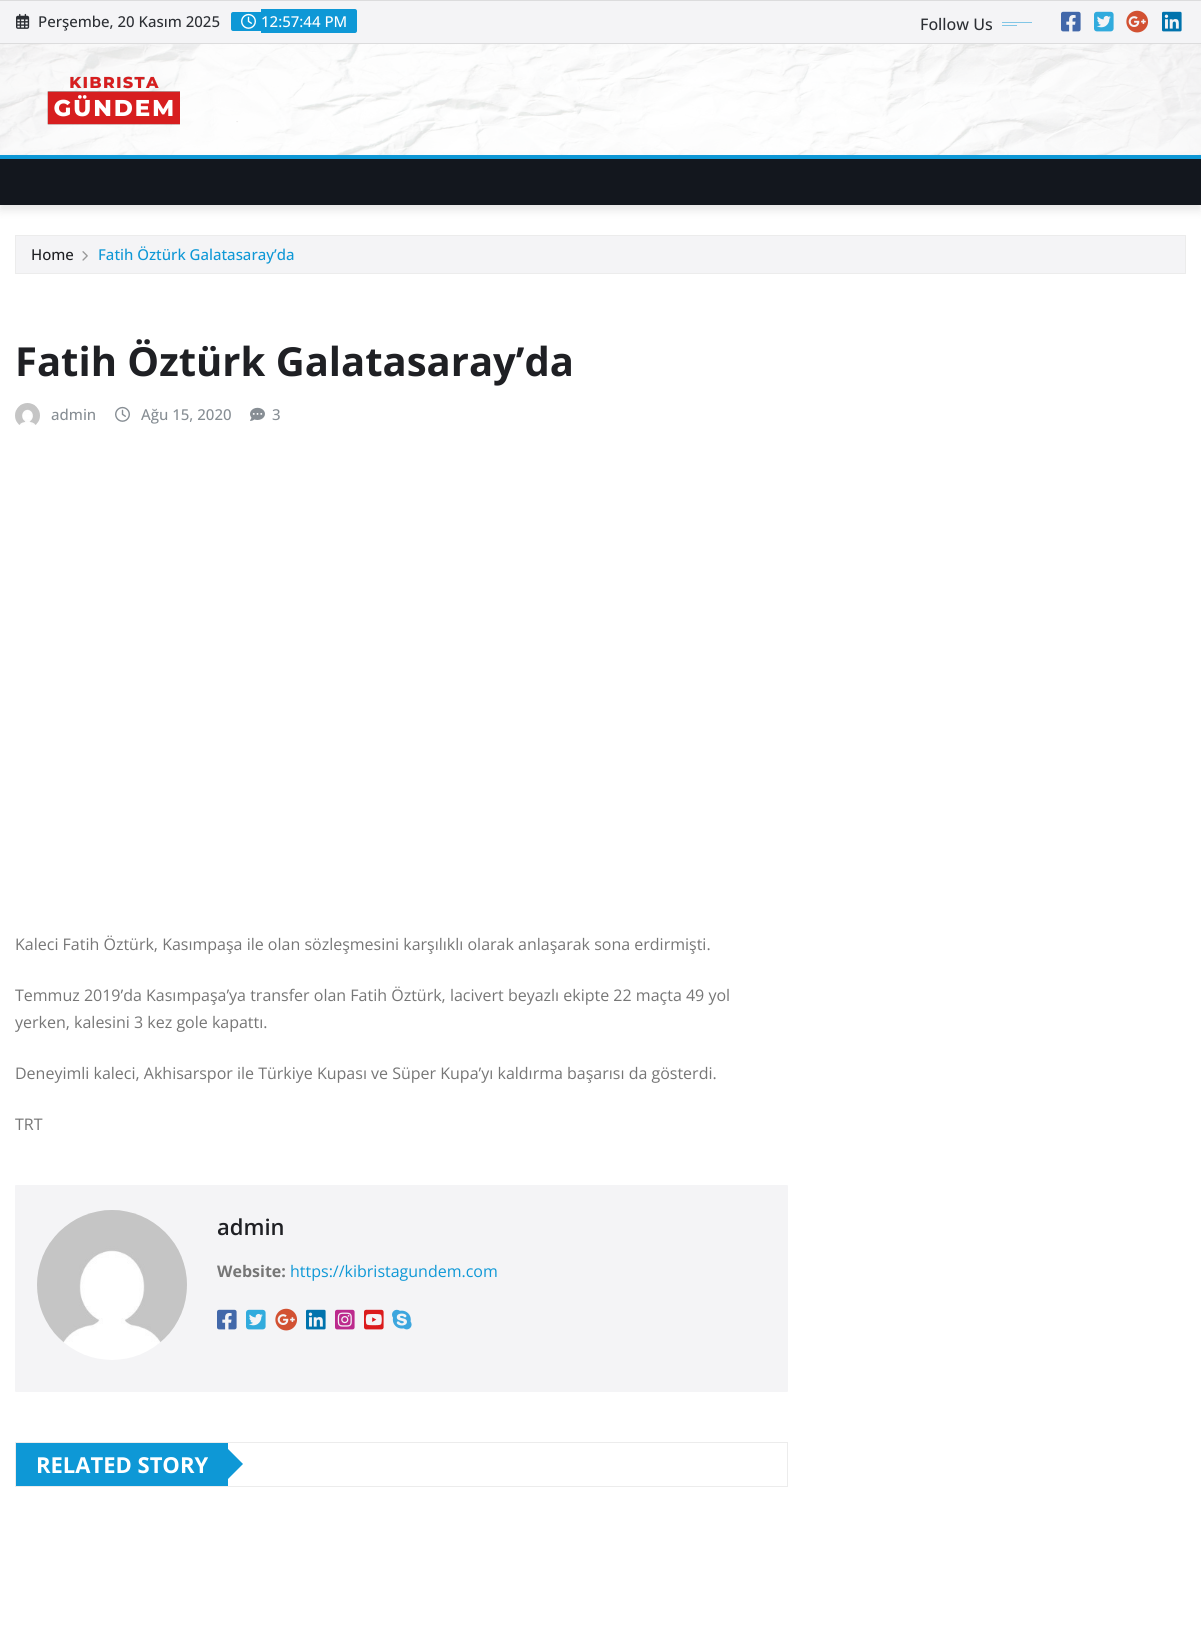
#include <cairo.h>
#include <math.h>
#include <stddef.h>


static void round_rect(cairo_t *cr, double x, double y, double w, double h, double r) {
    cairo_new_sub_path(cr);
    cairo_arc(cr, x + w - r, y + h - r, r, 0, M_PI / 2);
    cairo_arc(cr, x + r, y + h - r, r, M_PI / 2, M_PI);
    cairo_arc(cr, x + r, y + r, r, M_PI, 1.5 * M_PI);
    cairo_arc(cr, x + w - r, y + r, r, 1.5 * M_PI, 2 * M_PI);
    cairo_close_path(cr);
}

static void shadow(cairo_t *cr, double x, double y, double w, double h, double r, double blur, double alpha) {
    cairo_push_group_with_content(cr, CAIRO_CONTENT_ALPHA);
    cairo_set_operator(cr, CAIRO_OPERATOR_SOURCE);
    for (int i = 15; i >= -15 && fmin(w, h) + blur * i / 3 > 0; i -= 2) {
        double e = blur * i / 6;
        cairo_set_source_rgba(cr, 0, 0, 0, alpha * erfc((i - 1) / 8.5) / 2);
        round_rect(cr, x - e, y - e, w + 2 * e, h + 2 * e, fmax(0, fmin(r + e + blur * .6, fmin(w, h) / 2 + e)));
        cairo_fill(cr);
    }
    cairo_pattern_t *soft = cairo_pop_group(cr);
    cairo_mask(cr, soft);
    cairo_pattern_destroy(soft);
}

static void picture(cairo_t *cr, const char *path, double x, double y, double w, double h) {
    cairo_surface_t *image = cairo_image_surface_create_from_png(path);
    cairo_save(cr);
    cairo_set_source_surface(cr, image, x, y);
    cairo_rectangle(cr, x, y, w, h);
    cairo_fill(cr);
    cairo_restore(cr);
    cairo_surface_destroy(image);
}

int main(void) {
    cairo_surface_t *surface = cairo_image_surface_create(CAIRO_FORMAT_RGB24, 1201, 1633);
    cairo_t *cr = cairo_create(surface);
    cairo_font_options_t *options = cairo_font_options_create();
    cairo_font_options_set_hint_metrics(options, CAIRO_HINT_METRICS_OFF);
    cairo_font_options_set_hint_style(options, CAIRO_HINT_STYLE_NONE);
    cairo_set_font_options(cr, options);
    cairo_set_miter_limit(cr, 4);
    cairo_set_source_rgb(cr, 1, 1, 1);
    cairo_paint(cr);
    cairo_set_source_rgb(cr, 0.957, 0.957, 0.961);
    cairo_rectangle(cr, 0, 1, 1201, 42);
    cairo_fill(cr);
    cairo_set_source_rgb(cr, 0.863, 0.863, 0.867);
    cairo_rectangle(cr, 0, 0, 1201, 1);
    cairo_fill(cr);
    cairo_rectangle(cr, 0, 43, 1201, 1);
    cairo_fill(cr);
    picture(cr, "img1.png", 16, 13, 14, 16);
    cairo_select_font_face(cr, "Open Sans Medium", CAIRO_FONT_SLANT_NORMAL, CAIRO_FONT_WEIGHT_NORMAL);
    cairo_set_font_size(cr, 15);
    cairo_set_source_rgb(cr, 0.173, 0.184, 0.204);
    cairo_move_to(cr, 38, 27);
    cairo_show_text(cr, "Perşembe, 20 Kasım 2025");
    cairo_set_source_rgb(cr, 0.055, 0.596, 0.839);
    cairo_new_path(cr);
    cairo_move_to(cr, 233, 12);
    cairo_line_to(cr, 261, 12);
    cairo_line_to(cr, 261, 31);
    cairo_line_to(cr, 233, 31);
    cairo_curve_to(cr, 232, 31, 231, 30, 231, 29);
    cairo_line_to(cr, 231, 14);
    cairo_curve_to(cr, 231, 13, 232, 12, 233, 12);
    cairo_close_path(cr);
    cairo_fill(cr);
    picture(cr, "img2.png", 241, 13, 15, 16);
    cairo_new_path(cr);
    cairo_move_to(cr, 261, 9);
    cairo_line_to(cr, 355, 9);
    cairo_curve_to(cr, 356, 9, 357, 10, 357, 11);
    cairo_line_to(cr, 357, 31);
    cairo_curve_to(cr, 357, 32, 356, 33, 355, 33);
    cairo_line_to(cr, 261, 33);
    cairo_close_path(cr);
    cairo_fill(cr);
    cairo_set_source_rgb(cr, 1, 1, 1);
    cairo_move_to(cr, 261, 27);
    cairo_show_text(cr, "12:57:44 PM");
    cairo_set_font_size(cr, 16);
    cairo_set_source_rgb(cr, 0.173, 0.184, 0.204);
    cairo_move_to(cr, 920, 30);
    cairo_show_text(cr, "Follow Us");
    cairo_set_source_rgb(cr, 0.506, 0.776, 0.902);
    cairo_rectangle(cr, 1002, 22, 30, 1);
    cairo_fill(cr);
    cairo_rectangle(cr, 1002, 25, 15, 1);
    cairo_fill(cr);
    picture(cr, "img3.png", 1061, 11, 20, 21);
    picture(cr, "img4.png", 1094, 11, 20, 21);
    picture(cr, "img5.png", 1126, 10, 23, 23);
    picture(cr, "img6.png", 1162, 11, 20, 21);
    picture(cr, "img7.png", 0, 44, 1201, 111);
    picture(cr, "img8.png", 47, 76, 133, 49);
    cairo_set_source_rgb(cr, 0, 0, 0);
    shadow(cr, 0, 160, 1201, 50, 0, 5, 0.1);
    cairo_set_source_rgb(cr, 0.075, 0.09, 0.118);
    cairo_rectangle(cr, 0, 159, 1201, 46);
    cairo_fill(cr);
    cairo_set_source_rgb(cr, 0.055, 0.596, 0.839);
    cairo_rectangle(cr, 0, 155, 1201, 4);
    cairo_fill(cr);
    cairo_set_source_rgb(cr, 0.957, 0.957, 0.961);
    cairo_rectangle(cr, 15.5, 235.5, 1170, 38);
    cairo_fill_preserve(cr);
    cairo_set_source_rgb(cr, 0.922, 0.922, 0.922);
    cairo_set_line_width(cr, 1);
    cairo_stroke(cr);
    cairo_set_font_size(cr, 15);
    cairo_set_source_rgb(cr, 0.122, 0.125, 0.141);
    cairo_move_to(cr, 31, 260);
    cairo_show_text(cr, "Home");
    picture(cr, "img9.png", 82, 251, 6, 10);
    cairo_set_source_rgb(cr, 0.055, 0.596, 0.839);
    cairo_move_to(cr, 98, 260);
    cairo_show_text(cr, "Fatih Öztürk Galatasaray’da");
    cairo_select_font_face(cr, "Open Sans", CAIRO_FONT_SLANT_NORMAL, CAIRO_FONT_WEIGHT_BOLD);
    cairo_set_font_size(cr, 40);
    cairo_set_source_rgb(cr, 0.122, 0.125, 0.141);
    cairo_move_to(cr, 15, 376);
    cairo_show_text(cr, "Fatih Öztürk Galatasaray’da");
    picture(cr, "img10.png", 15, 403, 25, 22);
    cairo_select_font_face(cr, "Open Sans Medium", CAIRO_FONT_SLANT_NORMAL, CAIRO_FONT_WEIGHT_NORMAL);
    cairo_set_font_size(cr, 15);
    cairo_set_source_rgb(cr, 0.529, 0.557, 0.58);
    cairo_move_to(cr, 51, 420);
    cairo_show_text(cr, "admin");
    picture(cr, "img11.png", 115, 406, 15, 16);
    cairo_move_to(cr, 141, 420);
    cairo_show_text(cr, "Ağu 15, 2020");
    picture(cr, "img12.png", 250, 407, 15, 14);
    cairo_move_to(cr, 272, 420);
    cairo_show_text(cr, "3");
    cairo_select_font_face(cr, "Open Sans", CAIRO_FONT_SLANT_NORMAL, CAIRO_FONT_WEIGHT_NORMAL);
    cairo_set_font_size(cr, 16);
    cairo_set_source_rgb(cr, 0.463, 0.463, 0.463);
    cairo_move_to(cr, 15, 950);
    cairo_show_text(cr, "Kaleci Fatih Öztürk, Kasımpaşa ile olan sözleşmesini karşılıklı olarak anlaşarak sona erdirmişti.");
    cairo_move_to(cr, 15, 1001);
    cairo_show_text(cr, "Temmuz 2019’da Kasımpaşa’ya transfer olan Fatih Öztürk, lacivert beyazlı ekipte 22 maçta 49 yol");
    cairo_move_to(cr, 15, 1028);
    cairo_show_text(cr, "yerken, kalesini 3 kez gole kapattı.");
    cairo_move_to(cr, 15, 1079);
    cairo_show_text(cr, "Deneyimli kaleci, Akhisarspor ile Türkiye Kupası ve Süper Kupa’yı kaldırma başarısı da gösterdi.");
    cairo_move_to(cr, 15, 1130);
    cairo_show_text(cr, "TRT");
    cairo_set_source_rgb(cr, 0.957, 0.957, 0.961);
    round_rect(cr, 15, 1185, 773, 207, 1);
    cairo_fill(cr);
    picture(cr, "img13.png", 37, 1210, 150, 150);
    cairo_select_font_face(cr, "Open Sans SemiBold", CAIRO_FONT_SLANT_NORMAL, CAIRO_FONT_WEIGHT_NORMAL);
    cairo_set_font_size(cr, 22);
    cairo_set_source_rgb(cr, 0.122, 0.125, 0.141);
    cairo_move_to(cr, 217, 1235);
    cairo_show_text(cr, "admin");
    cairo_select_font_face(cr, "Open Sans", CAIRO_FONT_SLANT_NORMAL, CAIRO_FONT_WEIGHT_BOLD);
    cairo_set_font_size(cr, 16);
    cairo_set_source_rgb(cr, 0.463, 0.463, 0.463);
    cairo_move_to(cr, 217, 1277);
    cairo_show_text(cr, "Website:");
    cairo_select_font_face(cr, "Open Sans", CAIRO_FONT_SLANT_NORMAL, CAIRO_FONT_WEIGHT_NORMAL);
    cairo_set_source_rgb(cr, 0.055, 0.596, 0.839);
    cairo_move_to(cr, 290, 1277);
    cairo_show_text(cr, "https://kibristagundem.com");
    picture(cr, "img3.png", 217, 1309, 20, 21);
    picture(cr, "img4.png", 246, 1309, 20, 21);
    picture(cr, "img5.png", 275, 1308, 23, 23);
    picture(cr, "img6.png", 306, 1309, 20, 21);
    picture(cr, "img14.png", 335, 1309, 20, 21);
    picture(cr, "img15.png", 364, 1309, 20, 21);
    picture(cr, "img16.png", 392, 1309, 20, 21);
    cairo_rectangle(cr, 15.5, 1442.5, 772, 44);
    cairo_set_source_rgb(cr, 0.922, 0.922, 0.922);
    cairo_stroke(cr);
    cairo_set_source_rgb(cr, 0.055, 0.596, 0.839);
    cairo_rectangle(cr, 16, 1443, 212, 43);
    cairo_fill(cr);
    cairo_select_font_face(cr, "Open Sans", CAIRO_FONT_SLANT_NORMAL, CAIRO_FONT_WEIGHT_BOLD);
    cairo_set_font_size(cr, 22);
    cairo_set_source_rgb(cr, 1, 1, 1);
    cairo_move_to(cr, 36, 1473);
    cairo_show_text(cr, "RELATED STORY");
    cairo_set_source_rgb(cr, 0.055, 0.596, 0.839);
    cairo_new_path(cr);
    cairo_move_to(cr, 228, 1479);
    cairo_line_to(cr, 228, 1449);
    cairo_line_to(cr, 243, 1464);
    cairo_close_path(cr);
    cairo_fill(cr);
    cairo_surface_write_to_png(surface, "page.png");
    cairo_font_options_destroy(options);
    cairo_destroy(cr);
    cairo_surface_destroy(surface);
    return 0;
}
